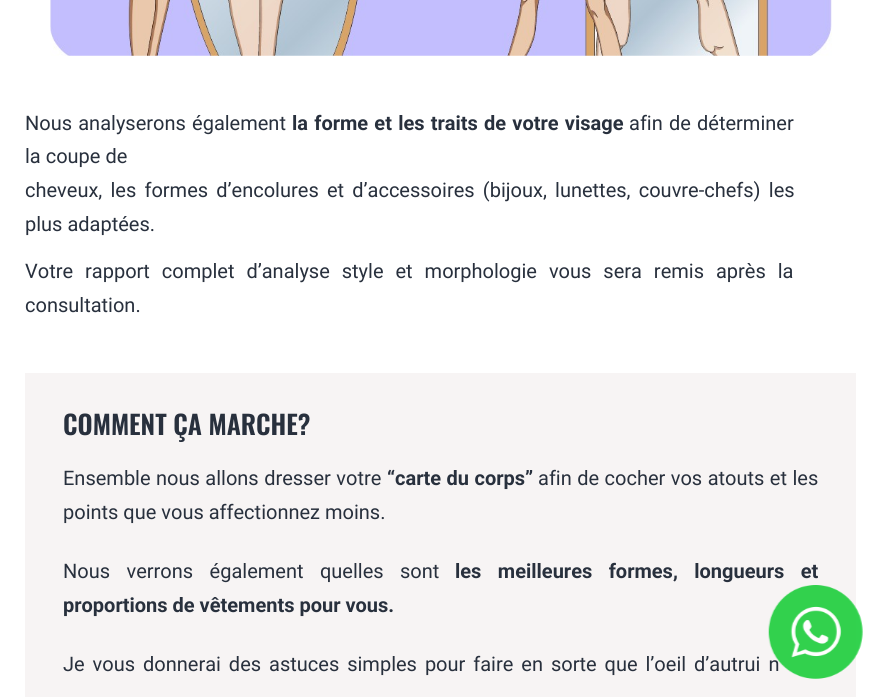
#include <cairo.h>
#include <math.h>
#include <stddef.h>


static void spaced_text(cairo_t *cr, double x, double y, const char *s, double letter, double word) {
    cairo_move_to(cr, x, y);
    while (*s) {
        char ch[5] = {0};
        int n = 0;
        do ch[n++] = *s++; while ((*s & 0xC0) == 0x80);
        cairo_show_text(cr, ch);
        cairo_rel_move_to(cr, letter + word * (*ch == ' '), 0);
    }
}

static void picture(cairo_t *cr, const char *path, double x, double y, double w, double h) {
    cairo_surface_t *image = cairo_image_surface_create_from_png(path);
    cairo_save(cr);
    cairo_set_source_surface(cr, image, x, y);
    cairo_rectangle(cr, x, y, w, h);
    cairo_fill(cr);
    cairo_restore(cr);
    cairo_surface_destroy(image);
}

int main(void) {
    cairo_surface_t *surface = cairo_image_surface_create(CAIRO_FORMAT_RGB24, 881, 697);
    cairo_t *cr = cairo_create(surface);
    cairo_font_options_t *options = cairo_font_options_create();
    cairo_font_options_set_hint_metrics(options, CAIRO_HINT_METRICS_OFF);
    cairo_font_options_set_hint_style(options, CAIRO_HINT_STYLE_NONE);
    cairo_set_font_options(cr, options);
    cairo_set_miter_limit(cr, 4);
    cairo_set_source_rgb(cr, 1, 1, 1);
    cairo_paint(cr);
    picture(cr, "img1.png", 50, 0, 782, 56);
    cairo_select_font_face(cr, "Roboto", CAIRO_FONT_SLANT_NORMAL, CAIRO_FONT_WEIGHT_NORMAL);
    cairo_set_font_size(cr, 20);
    cairo_set_source_rgb(cr, 0.157, 0.188, 0.239);
    spaced_text(cr, 25, 130, "Nous analyserons également", 0, 1.25);
    cairo_select_font_face(cr, "Roboto", CAIRO_FONT_SLANT_NORMAL, CAIRO_FONT_WEIGHT_BOLD);
    spaced_text(cr, 292, 130, "la forme et les traits de votre visage", 0, 1.25);
    cairo_select_font_face(cr, "Roboto", CAIRO_FONT_SLANT_NORMAL, CAIRO_FONT_WEIGHT_NORMAL);
    spaced_text(cr, 629, 130, "afin de déterminer", 0, 1.25);
    cairo_move_to(cr, 25, 163);
    cairo_show_text(cr, "la coupe de");
    spaced_text(cr, 25, 197, "cheveux, les formes d’encolures et d’accessoires (bijoux, lunettes, couvre-chefs) les", 0, 3.25);
    cairo_move_to(cr, 25, 231);
    cairo_show_text(cr, "plus adaptées.");
    spaced_text(cr, 25, 278, "Votre rapport complet d’analyse style et morphologie vous sera remis après la", 0, 7);
    cairo_move_to(cr, 25, 312);
    cairo_show_text(cr, "consultation.");
    cairo_set_source_rgb(cr, 0.965, 0.957, 0.957);
    cairo_rectangle(cr, 25, 373, 831, 324);
    cairo_fill(cr);
    cairo_select_font_face(cr, "Oswald SemiBold", CAIRO_FONT_SLANT_NORMAL, CAIRO_FONT_WEIGHT_NORMAL);
    cairo_set_font_size(cr, 26.25);
    cairo_set_source_rgb(cr, 0.157, 0.188, 0.239);
    cairo_move_to(cr, 63, 435);
    cairo_show_text(cr, "COMMENT ÇA MARCHE?");
    cairo_select_font_face(cr, "Roboto", CAIRO_FONT_SLANT_NORMAL, CAIRO_FONT_WEIGHT_NORMAL);
    cairo_set_font_size(cr, 20);
    spaced_text(cr, 63, 485, "Ensemble nous allons dresser votre", 0, 0.5);
    cairo_select_font_face(cr, "Roboto", CAIRO_FONT_SLANT_NORMAL, CAIRO_FONT_WEIGHT_BOLD);
    spaced_text(cr, 387, 485, "“carte du corps”", 0, 0.5);
    cairo_select_font_face(cr, "Roboto", CAIRO_FONT_SLANT_NORMAL, CAIRO_FONT_WEIGHT_NORMAL);
    spaced_text(cr, 538, 485, "afin de cocher vos atouts et les", 0, 0.5);
    cairo_move_to(cr, 63, 519);
    cairo_show_text(cr, "points que vous affectionnez moins.");
    spaced_text(cr, 63, 578, "Nous verrons également quelles sont", 0, 11.5);
    cairo_select_font_face(cr, "Roboto", CAIRO_FONT_SLANT_NORMAL, CAIRO_FONT_WEIGHT_BOLD);
    spaced_text(cr, 455, 578, "les meilleures formes, longueurs et", 0, 11.5);
    cairo_move_to(cr, 63, 612);
    cairo_show_text(cr, "proportions de vêtements pour vous.");
    cairo_select_font_face(cr, "Roboto", CAIRO_FONT_SLANT_NORMAL, CAIRO_FONT_WEIGHT_NORMAL);
    spaced_text(cr, 63, 671, "Je vous donnerai des astuces simples pour faire en sorte que l’oeil d’autrui n", 0, 3);
    picture(cr, "img2.png", 768, 585, 95, 94);
    cairo_surface_write_to_png(surface, "page.png");
    cairo_font_options_destroy(options);
    cairo_destroy(cr);
    cairo_surface_destroy(surface);
    return 0;
}
